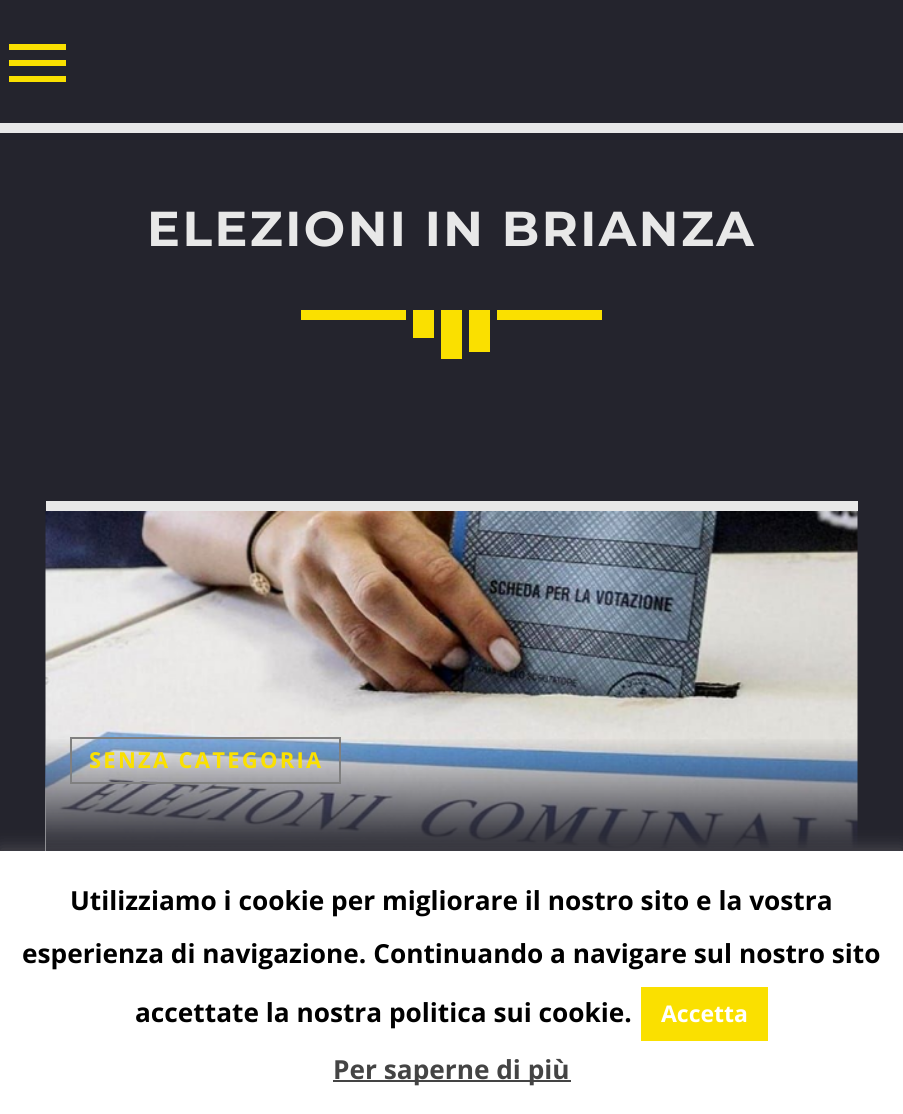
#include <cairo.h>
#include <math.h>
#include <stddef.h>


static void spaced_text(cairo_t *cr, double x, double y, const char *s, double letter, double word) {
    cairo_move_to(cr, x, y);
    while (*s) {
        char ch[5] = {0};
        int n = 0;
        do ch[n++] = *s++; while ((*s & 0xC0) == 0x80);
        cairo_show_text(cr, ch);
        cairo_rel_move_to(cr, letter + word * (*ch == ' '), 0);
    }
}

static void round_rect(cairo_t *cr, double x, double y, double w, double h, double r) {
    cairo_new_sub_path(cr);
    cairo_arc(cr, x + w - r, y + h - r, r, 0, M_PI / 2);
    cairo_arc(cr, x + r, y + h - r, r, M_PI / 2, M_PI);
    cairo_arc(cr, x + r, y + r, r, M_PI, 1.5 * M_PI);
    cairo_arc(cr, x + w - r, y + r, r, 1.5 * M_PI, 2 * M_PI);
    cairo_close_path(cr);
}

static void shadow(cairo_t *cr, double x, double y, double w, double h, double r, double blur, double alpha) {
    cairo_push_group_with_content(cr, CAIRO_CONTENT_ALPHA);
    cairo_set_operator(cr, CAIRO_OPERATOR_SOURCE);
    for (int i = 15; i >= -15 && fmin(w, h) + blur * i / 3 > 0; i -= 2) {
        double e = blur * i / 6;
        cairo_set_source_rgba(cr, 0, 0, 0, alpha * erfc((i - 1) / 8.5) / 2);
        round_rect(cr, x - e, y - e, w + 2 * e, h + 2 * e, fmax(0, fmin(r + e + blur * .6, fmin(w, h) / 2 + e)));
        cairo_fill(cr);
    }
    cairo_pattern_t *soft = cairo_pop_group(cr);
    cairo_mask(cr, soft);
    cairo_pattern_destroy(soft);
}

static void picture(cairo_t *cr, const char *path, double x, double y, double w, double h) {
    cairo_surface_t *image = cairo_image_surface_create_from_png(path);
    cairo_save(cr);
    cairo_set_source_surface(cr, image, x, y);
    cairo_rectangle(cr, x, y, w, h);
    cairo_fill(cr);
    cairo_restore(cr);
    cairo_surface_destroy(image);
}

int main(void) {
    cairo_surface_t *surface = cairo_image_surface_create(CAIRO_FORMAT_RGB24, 903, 1114);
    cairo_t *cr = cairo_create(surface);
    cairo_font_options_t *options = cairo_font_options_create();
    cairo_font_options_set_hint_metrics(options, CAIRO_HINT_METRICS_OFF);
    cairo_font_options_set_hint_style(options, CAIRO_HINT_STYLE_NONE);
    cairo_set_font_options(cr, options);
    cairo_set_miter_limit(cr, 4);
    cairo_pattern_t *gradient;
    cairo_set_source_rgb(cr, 0.141, 0.141, 0.176);
    cairo_paint(cr);
    cairo_set_source_rgb(cr, 0.98, 0.878, 0);
    cairo_new_path(cr);
    cairo_move_to(cr, 9, 82);
    cairo_line_to(cr, 66, 82);
    cairo_line_to(cr, 66, 76);
    cairo_line_to(cr, 9, 76);
    cairo_close_path(cr);
    cairo_move_to(cr, 9, 66);
    cairo_line_to(cr, 66, 66);
    cairo_line_to(cr, 66, 60);
    cairo_line_to(cr, 9, 60);
    cairo_close_path(cr);
    cairo_move_to(cr, 9, 44);
    cairo_line_to(cr, 9, 50);
    cairo_line_to(cr, 66, 50);
    cairo_line_to(cr, 66, 44);
    cairo_close_path(cr);
    cairo_fill(cr);
    cairo_set_source_rgb(cr, 0.91, 0.91, 0.91);
    cairo_rectangle(cr, 0, 123, 903, 10);
    cairo_fill(cr);
    cairo_select_font_face(cr, "Montserrat", CAIRO_FONT_SLANT_NORMAL, CAIRO_FONT_WEIGHT_BOLD);
    cairo_set_font_size(cr, 49);
    spaced_text(cr, 147, 246, "ELEZIONI IN BRIANZA", 2.5, 0);
    cairo_set_source_rgb(cr, 0.98, 0.878, 0);
    cairo_rectangle(cr, 301, 310, 105, 10);
    cairo_fill(cr);
    cairo_rectangle(cr, 441, 310, 21, 49);
    cairo_fill(cr);
    cairo_rectangle(cr, 413, 310, 21, 28);
    cairo_fill(cr);
    cairo_rectangle(cr, 469, 310, 21, 42);
    cairo_fill(cr);
    cairo_rectangle(cr, 497, 310, 105, 10);
    cairo_fill(cr);
    cairo_set_source_rgb(cr, 0.91, 0.91, 0.91);
    cairo_rectangle(cr, 46, 501, 812, 10);
    cairo_fill(cr);
    picture(cr, "img1.png", 45, 511, 813, 340);
    gradient = cairo_pattern_create_linear(452, 511, 452, 963);
    cairo_pattern_add_color_stop_rgba(gradient, 0, 0, 0, 0, 0);
    cairo_pattern_add_color_stop_rgba(gradient, 0.25, 0, 0, 0, 0);
    cairo_pattern_add_color_stop_rgba(gradient, 0.5, 0.141, 0.141, 0.176, 0);
    cairo_pattern_add_color_stop_rgba(gradient, 0.75, 0.141, 0.141, 0.176, 1);
    cairo_pattern_add_color_stop_rgba(gradient, 1, 0.141, 0.141, 0.176, 1);
    cairo_set_source(cr, gradient);
    cairo_pattern_destroy(gradient);
    cairo_rectangle(cr, 46, 739, 812, 112);
    cairo_fill(cr);
    cairo_rectangle(cr, 71, 738, 269, 45);
    cairo_set_source_rgb(cr, 0.502, 0.502, 0.502);
    cairo_stroke(cr);
    cairo_select_font_face(cr, "Open Sans", CAIRO_FONT_SLANT_NORMAL, CAIRO_FONT_WEIGHT_BOLD);
    cairo_set_font_size(cr, 22);
    cairo_set_source_rgb(cr, 0.98, 0.878, 0);
    spaced_text(cr, 89, 768, "SENZA CATEGORIA", 2.25, 0);
    cairo_set_source_rgb(cr, 0.675, 0.671, 0.671);
    shadow(cr, 0, 849, 903, 264, 0, 9, 0.3);
    cairo_set_source_rgb(cr, 1, 1, 1);
    cairo_rectangle(cr, 0, 851, 903, 263);
    cairo_fill(cr);
    cairo_set_font_size(cr, 26.25);
    cairo_set_source_rgb(cr, 0, 0, 0);
    cairo_move_to(cr, 70, 910);
    cairo_show_text(cr, "Utilizziamo i cookie per migliorare il nostro sito e la vostra");
    cairo_move_to(cr, 22, 963);
    cairo_show_text(cr, "esperienza di navigazione. Continuando a navigare sul nostro sito");
    cairo_move_to(cr, 135, 1022);
    cairo_show_text(cr, "accettate la nostra politica sui cookie.");
    cairo_set_source_rgb(cr, 0.98, 0.878, 0);
    cairo_rectangle(cr, 641, 987, 127, 54);
    cairo_fill(cr);
    cairo_set_font_size(cr, 23);
    cairo_set_source_rgb(cr, 1, 1, 1);
    cairo_move_to(cr, 661, 1022);
    cairo_show_text(cr, "Accetta");
    cairo_set_source_rgb(cr, 0.267, 0.267, 0.267);
    cairo_rectangle(cr, 333, 1080, 238, 2);
    cairo_fill(cr);
    cairo_set_font_size(cr, 26.25);
    cairo_move_to(cr, 333, 1079);
    cairo_show_text(cr, "Per saperne di più");
    cairo_surface_write_to_png(surface, "page.png");
    cairo_font_options_destroy(options);
    cairo_destroy(cr);
    cairo_surface_destroy(surface);
    return 0;
}
